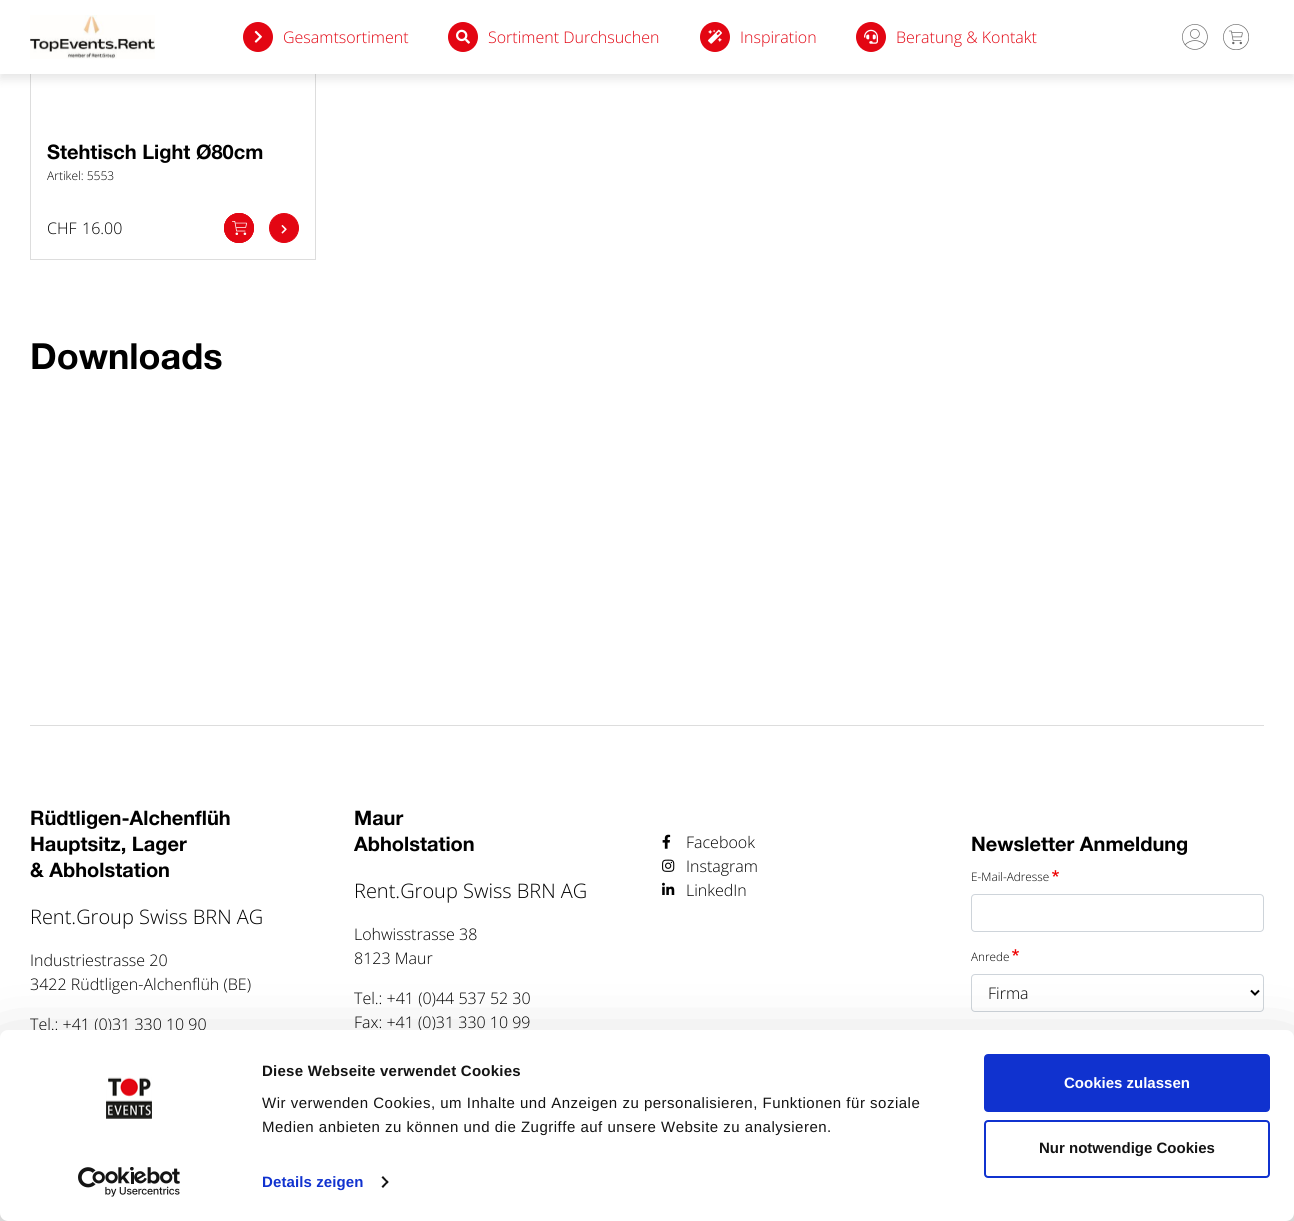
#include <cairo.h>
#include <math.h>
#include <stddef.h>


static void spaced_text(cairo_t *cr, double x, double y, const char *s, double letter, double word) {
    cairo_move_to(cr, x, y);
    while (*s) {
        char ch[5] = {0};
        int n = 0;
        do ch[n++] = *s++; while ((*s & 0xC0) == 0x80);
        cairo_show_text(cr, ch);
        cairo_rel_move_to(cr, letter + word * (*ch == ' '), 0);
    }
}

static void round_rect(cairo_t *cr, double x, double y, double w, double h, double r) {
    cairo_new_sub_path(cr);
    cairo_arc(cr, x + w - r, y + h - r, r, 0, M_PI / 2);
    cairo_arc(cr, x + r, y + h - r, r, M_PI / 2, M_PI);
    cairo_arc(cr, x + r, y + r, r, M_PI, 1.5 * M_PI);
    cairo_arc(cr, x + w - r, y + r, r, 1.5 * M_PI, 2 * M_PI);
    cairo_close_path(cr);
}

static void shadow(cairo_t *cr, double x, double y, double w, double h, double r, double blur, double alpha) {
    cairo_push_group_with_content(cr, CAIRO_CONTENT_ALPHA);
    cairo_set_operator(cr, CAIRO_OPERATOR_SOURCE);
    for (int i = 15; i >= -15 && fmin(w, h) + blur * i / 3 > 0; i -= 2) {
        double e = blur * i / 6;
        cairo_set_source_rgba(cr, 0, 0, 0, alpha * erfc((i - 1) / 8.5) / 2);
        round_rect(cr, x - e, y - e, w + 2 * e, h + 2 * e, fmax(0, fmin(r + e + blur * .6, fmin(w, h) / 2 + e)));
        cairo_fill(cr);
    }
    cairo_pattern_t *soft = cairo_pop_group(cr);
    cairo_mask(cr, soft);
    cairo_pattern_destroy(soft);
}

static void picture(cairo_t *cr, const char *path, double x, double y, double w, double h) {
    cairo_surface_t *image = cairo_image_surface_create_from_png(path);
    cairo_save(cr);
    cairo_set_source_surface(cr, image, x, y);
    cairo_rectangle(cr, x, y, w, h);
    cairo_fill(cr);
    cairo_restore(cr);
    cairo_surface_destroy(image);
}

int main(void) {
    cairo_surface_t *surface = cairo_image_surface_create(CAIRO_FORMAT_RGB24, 1294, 1221);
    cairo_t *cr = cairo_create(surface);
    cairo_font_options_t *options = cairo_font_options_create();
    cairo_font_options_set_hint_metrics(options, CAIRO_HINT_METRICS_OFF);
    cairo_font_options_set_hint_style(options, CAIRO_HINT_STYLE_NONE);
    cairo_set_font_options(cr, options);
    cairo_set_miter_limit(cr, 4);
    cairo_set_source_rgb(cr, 1, 1, 1);
    cairo_paint(cr);
    cairo_rectangle(cr, 30.5, -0.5, 285, 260);
    cairo_set_source_rgb(cr, 0.867, 0.867, 0.867);
    cairo_set_line_width(cr, 1);
    cairo_stroke(cr);
    cairo_set_source_rgb(cr, 0, 0, 0);
    shadow(cr, 0, 5, 1294, 74, 0, 5, 0.1);
    cairo_set_source_rgb(cr, 1, 1, 1);
    cairo_rectangle(cr, 0, 0, 1294, 74);
    cairo_fill(cr);
    picture(cr, "img1.png", 30, 15, 125, 44);
    cairo_set_source_rgb(cr, 0.89, 0.024, 0.075);
    cairo_arc(cr, 258, 37, 15, 0, 2 * M_PI);
    cairo_fill(cr);
    picture(cr, "img2.png", 254, 30, 8, 13);
    cairo_select_font_face(cr, "Open Sans Light", CAIRO_FONT_SLANT_NORMAL, CAIRO_FONT_WEIGHT_NORMAL);
    cairo_set_font_size(cr, 16);
    cairo_move_to(cr, 283, 43);
    cairo_show_text(cr, "Gesamtsortiment");
    cairo_new_path(cr);
    cairo_arc(cr, 463, 37, 15, 0, 2 * M_PI);
    cairo_fill(cr);
    picture(cr, "img3.png", 456, 29, 14, 15);
    cairo_move_to(cr, 488, 43);
    cairo_show_text(cr, "Sortiment Durchsuchen");
    cairo_new_path(cr);
    cairo_arc(cr, 715, 37, 15, 0, 2 * M_PI);
    cairo_fill(cr);
    picture(cr, "img4.png", 708, 29, 14, 15);
    cairo_move_to(cr, 740, 43);
    cairo_show_text(cr, "Inspiration");
    cairo_new_path(cr);
    cairo_arc(cr, 871, 37, 15, 0, 2 * M_PI);
    cairo_fill(cr);
    picture(cr, "img5.png", 864, 29, 14, 15);
    cairo_move_to(cr, 896, 43);
    cairo_show_text(cr, "Beratung & Kontakt");
    picture(cr, "img6.png", 1182, 24, 26, 26);
    picture(cr, "img7.png", 1223, 24, 26, 26);
    cairo_select_font_face(cr, "Helvetica Neue", CAIRO_FONT_SLANT_NORMAL, CAIRO_FONT_WEIGHT_BOLD);
    cairo_set_font_size(cr, 20);
    cairo_set_source_rgb(cr, 0, 0, 0);
    cairo_move_to(cr, 47, 159);
    cairo_show_text(cr, "Stehtisch Light Ø80cm");
    cairo_select_font_face(cr, "Open Sans Light", CAIRO_FONT_SLANT_NORMAL, CAIRO_FONT_WEIGHT_NORMAL);
    cairo_set_font_size(cr, 12);
    cairo_move_to(cr, 47, 180);
    cairo_show_text(cr, "Artikel: 5553");
    cairo_set_font_size(cr, 16);
    cairo_move_to(cr, 47, 234);
    cairo_show_text(cr, "CHF");
    cairo_move_to(cr, 82, 234);
    cairo_show_text(cr, "16.00");
    cairo_new_path(cr);
    cairo_arc(cr, 239, 228, 14.5, 0, 2 * M_PI);
    cairo_set_source_rgb(cr, 0.89, 0.024, 0.075);
    cairo_stroke(cr);
    cairo_arc(cr, 239, 228, 15, 0, 2 * M_PI);
    cairo_fill(cr);
    picture(cr, "img8.png", 232, 221, 15, 14);
    cairo_arc(cr, 239, 228, 14.5, 0, 2 * M_PI);
    cairo_stroke(cr);
    cairo_arc(cr, 284, 228, 14.5, 0, 2 * M_PI);
    cairo_fill_preserve(cr);
    cairo_stroke(cr);
    picture(cr, "img9.png", 281, 225, 6, 9);
    cairo_select_font_face(cr, "Helvetica Neue", CAIRO_FONT_SLANT_NORMAL, CAIRO_FONT_WEIGHT_BOLD);
    cairo_set_font_size(cr, 36);
    cairo_set_source_rgb(cr, 0, 0, 0);
    cairo_move_to(cr, 30, 369);
    cairo_show_text(cr, "Downloads");
    cairo_set_source_rgb(cr, 0.867, 0.867, 0.867);
    cairo_rectangle(cr, 30, 725, 1234, 1);
    cairo_fill(cr);
    cairo_set_font_size(cr, 20);
    cairo_set_source_rgb(cr, 0, 0, 0);
    cairo_move_to(cr, 30, 825);
    cairo_show_text(cr, "Rüdtligen-Alchenflüh");
    cairo_move_to(cr, 30, 851);
    cairo_show_text(cr, "Hauptsitz, Lager");
    cairo_move_to(cr, 30, 877);
    cairo_show_text(cr, "& Abholstation");
    cairo_select_font_face(cr, "Open Sans Light", CAIRO_FONT_SLANT_NORMAL, CAIRO_FONT_WEIGHT_NORMAL);
    cairo_move_to(cr, 30, 924);
    cairo_show_text(cr, "Rent.Group Swiss BRN AG");
    cairo_set_font_size(cr, 16);
    cairo_move_to(cr, 30, 966);
    cairo_show_text(cr, "Industriestrasse 20");
    cairo_move_to(cr, 30, 990);
    cairo_show_text(cr, "3422 Rüdtligen-Alchenflüh (BE)");
    cairo_move_to(cr, 30, 1030);
    cairo_show_text(cr, "Tel.: +41 (0)31 330 10 90");
    cairo_select_font_face(cr, "Helvetica Neue", CAIRO_FONT_SLANT_NORMAL, CAIRO_FONT_WEIGHT_BOLD);
    cairo_set_font_size(cr, 20);
    cairo_move_to(cr, 354, 825);
    cairo_show_text(cr, "Maur");
    cairo_move_to(cr, 354, 851);
    cairo_show_text(cr, "Abholstation");
    cairo_select_font_face(cr, "Open Sans Light", CAIRO_FONT_SLANT_NORMAL, CAIRO_FONT_WEIGHT_NORMAL);
    cairo_move_to(cr, 354, 898);
    cairo_show_text(cr, "Rent.Group Swiss BRN AG");
    cairo_set_font_size(cr, 16);
    cairo_move_to(cr, 354, 940);
    cairo_show_text(cr, "Lohwisstrasse 38");
    cairo_move_to(cr, 354, 964);
    cairo_show_text(cr, "8123 Maur");
    cairo_move_to(cr, 354, 1004);
    cairo_show_text(cr, "Tel.: +41 (0)44 537 52 30");
    cairo_move_to(cr, 354, 1028);
    cairo_show_text(cr, "Fax: +41 (0)31 330 10 99");
    picture(cr, "img10.png", 662, 834, 9, 15);
    cairo_move_to(cr, 686, 848);
    cairo_show_text(cr, "Facebook");
    picture(cr, "img11.png", 662, 859, 13, 13);
    cairo_move_to(cr, 686, 872);
    cairo_show_text(cr, "Instagram");
    picture(cr, "img12.png", 662, 882, 13, 13);
    cairo_move_to(cr, 686, 896);
    cairo_show_text(cr, "LinkedIn");
    cairo_select_font_face(cr, "Helvetica Neue", CAIRO_FONT_SLANT_NORMAL, CAIRO_FONT_WEIGHT_BOLD);
    cairo_set_font_size(cr, 20);
    cairo_move_to(cr, 971, 851);
    cairo_show_text(cr, "Newsletter Anmeldung");
    cairo_select_font_face(cr, "Open Sans Light", CAIRO_FONT_SLANT_NORMAL, CAIRO_FONT_WEIGHT_NORMAL);
    cairo_set_font_size(cr, 11.75);
    cairo_move_to(cr, 971, 881);
    cairo_show_text(cr, "E-Mail-Adresse");
    picture(cr, "img13.png", 1052, 870, 7, 7);
    round_rect(cr, 971.5, 894.5, 292, 37, 3.5);
    cairo_set_source_rgb(cr, 0.808, 0.831, 0.855);
    cairo_stroke(cr);
    cairo_set_source_rgb(cr, 0, 0, 0);
    cairo_move_to(cr, 971, 961);
    cairo_show_text(cr, "Anrede");
    picture(cr, "img13.png", 1012, 949, 7, 7);
    round_rect(cr, 971.5, 974.5, 292, 37, 3.5);
    cairo_set_source_rgb(cr, 0.808, 0.831, 0.855);
    cairo_stroke(cr);
    cairo_new_path(cr);
    cairo_move_to(cr, 1251, 990.5);
    cairo_line_to(cr, 1255, 994.5);
    cairo_line_to(cr, 1259, 990.5);
    cairo_set_source_rgb(cr, 0, 0, 0);
    cairo_set_line_width(cr, 2);
    cairo_stroke(cr);
    cairo_set_font_size(cr, 16);
    cairo_move_to(cr, 988, 999);
    cairo_show_text(cr, "Firma");
    cairo_set_source_rgb(cr, 0, 0, 0);
    shadow(cr, 0, 1060, 1294, 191, 8, 35, 0.3);
    cairo_set_source_rgb(cr, 1, 1, 1);
    round_rect(cr, 0, 1030, 1294, 191, 8);
    cairo_fill(cr);
    picture(cr, "img14.png", 106, 1077, 46, 42);
    picture(cr, "img15.png", 78, 1167, 102, 30);
    cairo_select_font_face(cr, "Liberation Sans", CAIRO_FONT_SLANT_NORMAL, CAIRO_FONT_WEIGHT_BOLD);
    cairo_set_font_size(cr, 15);
    cairo_set_source_rgb(cr, 0.078, 0.078, 0.078);
    spaced_text(cr, 262, 1076, "Diese Webseite verwendet Cookies", 0.25, 0);
    cairo_select_font_face(cr, "Liberation Sans", CAIRO_FONT_SLANT_NORMAL, CAIRO_FONT_WEIGHT_NORMAL);
    spaced_text(cr, 262, 1108, "Wir verwenden Cookies, um Inhalte und Anzeigen zu personalisieren, Funktionen für soziale", 0.5, 0);
    spaced_text(cr, 262, 1132, "Medien anbieten zu können und die Zugriffe auf unsere Website zu analysieren.", 0.5, 0);
    cairo_select_font_face(cr, "Liberation Sans", CAIRO_FONT_SLANT_NORMAL, CAIRO_FONT_WEIGHT_BOLD);
    cairo_set_source_rgb(cr, 0.063, 0.196, 0.812);
    spaced_text(cr, 262, 1187, "Details zeigen", 0.1, 0);
    cairo_set_source_rgb(cr, 0.078, 0.078, 0.078);
    cairo_new_path(cr);
    cairo_move_to(cr, 383, 1176);
    cairo_line_to(cr, 388.5, 1182);
    cairo_line_to(cr, 387.5, 1183.5);
    cairo_line_to(cr, 381.5, 1177.5);
    cairo_close_path(cr);
    cairo_fill(cr);
    cairo_new_path(cr);
    cairo_move_to(cr, 387.5, 1180.5);
    cairo_line_to(cr, 388.5, 1182);
    cairo_line_to(cr, 383, 1188);
    cairo_line_to(cr, 381.5, 1186.5);
    cairo_close_path(cr);
    cairo_fill(cr);
    cairo_set_source_rgb(cr, 0.063, 0.196, 0.812);
    round_rect(cr, 985, 1055, 284, 56, 3);
    cairo_fill_preserve(cr);
    cairo_stroke(cr);
    cairo_set_source_rgb(cr, 1, 1, 1);
    cairo_move_to(cr, 1064, 1088);
    cairo_show_text(cr, "Cookies zulassen");
    round_rect(cr, 985, 1121, 284, 56, 3);
    cairo_set_source_rgb(cr, 0.063, 0.196, 0.812);
    cairo_stroke(cr);
    cairo_set_source_rgb(cr, 0.078, 0.078, 0.078);
    cairo_move_to(cr, 1039, 1153);
    cairo_show_text(cr, "Nur notwendige Cookies");
    cairo_surface_write_to_png(surface, "page.png");
    cairo_font_options_destroy(options);
    cairo_destroy(cr);
    cairo_surface_destroy(surface);
    return 0;
}
